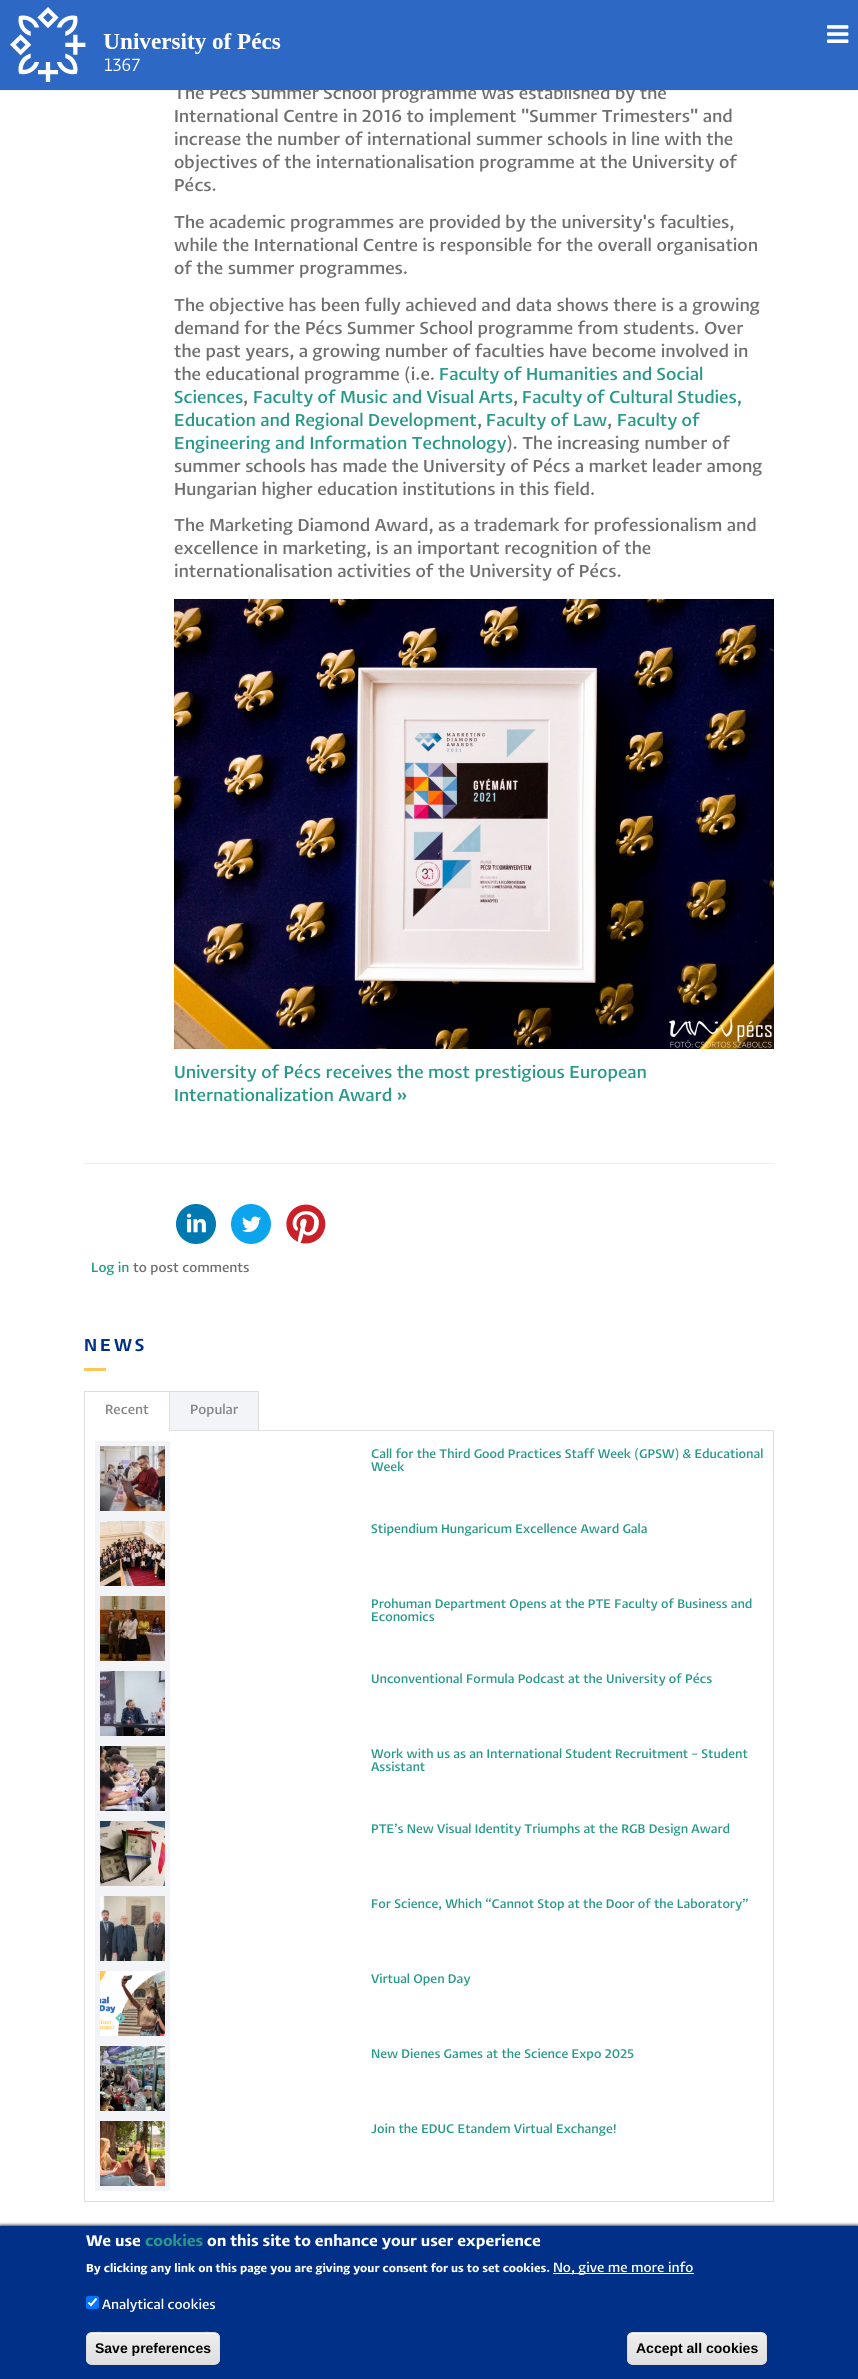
#include <cairo.h>
#include <math.h>
#include <stddef.h>


static void spaced_text(cairo_t *cr, double x, double y, const char *s, double letter, double word) {
    cairo_move_to(cr, x, y);
    while (*s) {
        char ch[5] = {0};
        int n = 0;
        do ch[n++] = *s++; while ((*s & 0xC0) == 0x80);
        cairo_show_text(cr, ch);
        cairo_rel_move_to(cr, letter + word * (*ch == ' '), 0);
    }
}

static void round_rect(cairo_t *cr, double x, double y, double w, double h, double r) {
    cairo_new_sub_path(cr);
    cairo_arc(cr, x + w - r, y + h - r, r, 0, M_PI / 2);
    cairo_arc(cr, x + r, y + h - r, r, M_PI / 2, M_PI);
    cairo_arc(cr, x + r, y + r, r, M_PI, 1.5 * M_PI);
    cairo_arc(cr, x + w - r, y + r, r, 1.5 * M_PI, 2 * M_PI);
    cairo_close_path(cr);
}

static void shadow(cairo_t *cr, double x, double y, double w, double h, double r, double blur, double alpha) {
    cairo_push_group_with_content(cr, CAIRO_CONTENT_ALPHA);
    cairo_set_operator(cr, CAIRO_OPERATOR_SOURCE);
    for (int i = 15; i >= -15 && fmin(w, h) + blur * i / 3 > 0; i -= 2) {
        double e = blur * i / 6;
        cairo_set_source_rgba(cr, 0, 0, 0, alpha * erfc((i - 1) / 8.5) / 2);
        round_rect(cr, x - e, y - e, w + 2 * e, h + 2 * e, fmax(0, fmin(r + e + blur * .6, fmin(w, h) / 2 + e)));
        cairo_fill(cr);
    }
    cairo_pattern_t *soft = cairo_pop_group(cr);
    cairo_mask(cr, soft);
    cairo_pattern_destroy(soft);
}

static void picture(cairo_t *cr, const char *path, double x, double y, double w, double h) {
    cairo_surface_t *image = cairo_image_surface_create_from_png(path);
    cairo_save(cr);
    cairo_set_source_surface(cr, image, x, y);
    cairo_rectangle(cr, x, y, w, h);
    cairo_fill(cr);
    cairo_restore(cr);
    cairo_surface_destroy(image);
}

int main(void) {
    cairo_surface_t *surface = cairo_image_surface_create(CAIRO_FORMAT_RGB24, 858, 2379);
    cairo_t *cr = cairo_create(surface);
    cairo_font_options_t *options = cairo_font_options_create();
    cairo_font_options_set_hint_metrics(options, CAIRO_HINT_METRICS_OFF);
    cairo_font_options_set_hint_style(options, CAIRO_HINT_STYLE_NONE);
    cairo_set_font_options(cr, options);
    cairo_set_miter_limit(cr, 4);
    cairo_pattern_t *gradient;
    cairo_set_source_rgb(cr, 1, 1, 1);
    cairo_paint(cr);
    cairo_set_source_rgb(cr, 0, 0, 0);
    shadow(cr, 1, 2, 856, 88, 0, 0.5, 0.2);
    cairo_select_font_face(cr, "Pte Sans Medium", CAIRO_FONT_SLANT_NORMAL, CAIRO_FONT_WEIGHT_NORMAL);
    cairo_set_font_size(cr, 18);
    cairo_set_source_rgb(cr, 0.435, 0.435, 0.435);
    cairo_move_to(cr, 174, 99);
    cairo_show_text(cr, "The Pécs Summer School programme was established by the");
    cairo_set_source_rgb(cr, 0.176, 0.408, 0.769);
    cairo_rectangle(cr, 0, 0, 858, 90);
    cairo_fill(cr);
    picture(cr, "img1.png", 10, 7, 271, 75);
    picture(cr, "img2.png", 827, 25, 22, 18);
    cairo_set_source_rgb(cr, 0.925, 0.933, 0.941);
    cairo_rectangle(cr, 84, 1163, 690, 1);
    cairo_fill(cr);
    cairo_set_source_rgb(cr, 0.435, 0.435, 0.435);
    cairo_move_to(cr, 174, 122);
    cairo_show_text(cr, "International Centre in 2016 to implement \"Summer Trimesters\" and");
    cairo_move_to(cr, 174, 145);
    cairo_show_text(cr, "increase the number of international summer schools in line with the");
    cairo_move_to(cr, 174, 168);
    cairo_show_text(cr, "objectives of the internationalisation programme at the University of");
    cairo_move_to(cr, 174, 191);
    cairo_show_text(cr, "Pécs.");
    cairo_move_to(cr, 174, 228);
    cairo_show_text(cr, "The academic programmes are provided by the university's faculties,");
    cairo_move_to(cr, 174, 251);
    cairo_show_text(cr, "while the International Centre is responsible for the overall organisation");
    cairo_move_to(cr, 174, 274);
    cairo_show_text(cr, "of the summer programmes.");
    cairo_move_to(cr, 174, 311);
    cairo_show_text(cr, "The objective has been fully achieved and data shows there is a growing");
    cairo_move_to(cr, 174, 334);
    cairo_show_text(cr, "demand for the Pécs Summer School programme from students. Over");
    cairo_move_to(cr, 174, 357);
    cairo_show_text(cr, "the past years, a growing number of faculties have become involved in");
    cairo_move_to(cr, 174, 380);
    cairo_show_text(cr, "the educational programme (i.e.");
    cairo_set_source_rgb(cr, 0.153, 0.6, 0.537);
    cairo_move_to(cr, 439, 380);
    cairo_show_text(cr, "Faculty of Humanities and Social");
    cairo_move_to(cr, 174, 403);
    cairo_show_text(cr, "Sciences");
    cairo_set_source_rgb(cr, 0.435, 0.435, 0.435);
    cairo_move_to(cr, 243, 403);
    cairo_show_text(cr, ",");
    cairo_set_source_rgb(cr, 0.153, 0.6, 0.537);
    cairo_move_to(cr, 253, 403);
    cairo_show_text(cr, "Faculty of Music and Visual Arts");
    cairo_set_source_rgb(cr, 0.435, 0.435, 0.435);
    cairo_move_to(cr, 513, 403);
    cairo_show_text(cr, ",");
    cairo_set_source_rgb(cr, 0.153, 0.6, 0.537);
    cairo_move_to(cr, 522, 403);
    cairo_show_text(cr, "Faculty of Cultural Studies,");
    cairo_move_to(cr, 174, 426);
    cairo_show_text(cr, "Education and Regional Development");
    cairo_set_source_rgb(cr, 0.435, 0.435, 0.435);
    cairo_move_to(cr, 477, 426);
    cairo_show_text(cr, ",");
    cairo_set_source_rgb(cr, 0.153, 0.6, 0.537);
    cairo_move_to(cr, 486, 426);
    cairo_show_text(cr, "Faculty of Law");
    cairo_set_source_rgb(cr, 0.435, 0.435, 0.435);
    cairo_move_to(cr, 607, 426);
    cairo_show_text(cr, ",");
    cairo_set_source_rgb(cr, 0.153, 0.6, 0.537);
    cairo_move_to(cr, 617, 426);
    cairo_show_text(cr, "Faculty of");
    cairo_move_to(cr, 174, 449);
    cairo_show_text(cr, "Engineering and Information Technology");
    cairo_set_source_rgb(cr, 0.435, 0.435, 0.435);
    cairo_move_to(cr, 506, 449);
    cairo_show_text(cr, "). The increasing number of");
    cairo_move_to(cr, 174, 472);
    cairo_show_text(cr, "summer schools has made the University of Pécs a market leader among");
    cairo_move_to(cr, 174, 495);
    cairo_show_text(cr, "Hungarian higher education institutions in this field.");
    cairo_move_to(cr, 174, 531);
    cairo_show_text(cr, "The Marketing Diamond Award, as a trademark for professionalism and");
    cairo_move_to(cr, 174, 554);
    cairo_show_text(cr, "excellence in marketing, is an important recognition of the");
    cairo_move_to(cr, 174, 577);
    cairo_show_text(cr, "internationalisation activities of the University of Pécs.");
    picture(cr, "img3.png", 174, 599, 600, 450);
    cairo_set_source_rgb(cr, 0.153, 0.6, 0.537);
    cairo_move_to(cr, 174, 1078);
    cairo_show_text(cr, "University of Pécs receives the most prestigious European");
    cairo_move_to(cr, 174, 1101);
    cairo_show_text(cr, "Internationalization Award »");
    picture(cr, "img4.png", 176, 1204, 40, 40);
    picture(cr, "img5.png", 231, 1204, 40, 40);
    picture(cr, "img6.png", 286, 1204, 40, 40);
    cairo_set_font_size(cr, 14);
    cairo_move_to(cr, 91, 1272);
    cairo_show_text(cr, "Log in");
    cairo_set_source_rgb(cr, 0.435, 0.435, 0.435);
    cairo_move_to(cr, 133, 1272);
    cairo_show_text(cr, "to post comments");
    cairo_select_font_face(cr, "Pte Sans SemiBold", CAIRO_FONT_SLANT_NORMAL, CAIRO_FONT_WEIGHT_NORMAL);
    cairo_set_font_size(cr, 18);
    cairo_set_source_rgb(cr, 0, 0.188, 0.529);
    spaced_text(cr, 84, 1351, "NEWS", 3, 0);
    cairo_set_source_rgb(cr, 1, 0.776, 0.345);
    cairo_rectangle(cr, 84, 1368, 22, 3);
    cairo_fill(cr);
    cairo_set_source_rgb(cr, 0.871, 0.886, 0.902);
    cairo_rectangle(cr, 84, 1430, 690, 1);
    cairo_fill(cr);
    cairo_set_source_rgb(cr, 0.867, 0.867, 0.867);
    cairo_rectangle(cr, 84, 1391, 175, 1);
    cairo_fill(cr);
    cairo_rectangle(cr, 84, 1391, 1, 39);
    cairo_fill(cr);
    cairo_select_font_face(cr, "Pte Sans Medium", CAIRO_FONT_SLANT_NORMAL, CAIRO_FONT_WEIGHT_NORMAL);
    cairo_set_font_size(cr, 14);
    cairo_set_source_rgb(cr, 0.518, 0.525, 0.533);
    cairo_move_to(cr, 105, 1414);
    cairo_show_text(cr, "Recent");
    cairo_set_source_rgb(cr, 1, 1, 1);
    cairo_rectangle(cr, 85, 1430, 84, 1);
    cairo_fill(cr);
    cairo_set_source_rgb(cr, 0.867, 0.867, 0.867);
    cairo_rectangle(cr, 258, 1391, 1, 39);
    cairo_fill(cr);
    cairo_rectangle(cr, 169, 1391, 1, 39);
    cairo_fill(cr);
    cairo_set_source_rgb(cr, 0.949, 0.957, 0.965);
    cairo_new_path(cr);
    cairo_move_to(cr, 172, 1392);
    cairo_line_to(cr, 256, 1392);
    cairo_curve_to(cr, 257, 1392, 258, 1393, 258, 1394);
    cairo_line_to(cr, 258, 1430);
    cairo_line_to(cr, 170, 1430);
    cairo_line_to(cr, 170, 1394);
    cairo_curve_to(cr, 170, 1393, 171, 1392, 172, 1392);
    cairo_close_path(cr);
    cairo_fill(cr);
    cairo_set_source_rgb(cr, 0.518, 0.525, 0.533);
    cairo_move_to(cr, 190, 1414);
    cairo_show_text(cr, "Popular");
    cairo_set_source_rgb(cr, 0.867, 0.867, 0.867);
    cairo_rectangle(cr, 773, 1431, 1, 771);
    cairo_fill(cr);
    cairo_rectangle(cr, 84, 2201, 690, 1);
    cairo_fill(cr);
    cairo_rectangle(cr, 84, 1431, 1, 771);
    cairo_fill(cr);
    cairo_rectangle(cr, 97.5, 1443.5, 70, 70);
    cairo_set_source_rgb(cr, 0.949, 0.957, 0.965);
    cairo_set_line_width(cr, 5);
    cairo_stroke(cr);
    picture(cr, "img7.png", 100, 1446, 65, 65);
    cairo_set_font_size(cr, 13);
    cairo_set_source_rgb(cr, 0.153, 0.6, 0.537);
    cairo_move_to(cr, 371, 1458);
    cairo_show_text(cr, "Call for the Third Good Practices Staff Week (GPSW) & Educational");
    cairo_move_to(cr, 371, 1471);
    cairo_show_text(cr, "Week");
    cairo_rectangle(cr, 97.5, 1518.5, 70, 70);
    cairo_set_source_rgb(cr, 0.949, 0.957, 0.965);
    cairo_stroke(cr);
    picture(cr, "img8.png", 100, 1521, 65, 65);
    cairo_set_source_rgb(cr, 0.153, 0.6, 0.537);
    cairo_move_to(cr, 371, 1533);
    cairo_show_text(cr, "Stipendium Hungaricum Excellence Award Gala");
    cairo_rectangle(cr, 97.5, 1593.5, 70, 70);
    cairo_set_source_rgb(cr, 0.949, 0.957, 0.965);
    cairo_stroke(cr);
    picture(cr, "img9.png", 100, 1596, 65, 65);
    cairo_set_source_rgb(cr, 0.153, 0.6, 0.537);
    cairo_move_to(cr, 371, 1608);
    cairo_show_text(cr, "Prohuman Department Opens at the PTE Faculty of Business and");
    cairo_move_to(cr, 371, 1621);
    cairo_show_text(cr, "Economics");
    cairo_rectangle(cr, 97.5, 1668.5, 70, 70);
    cairo_set_source_rgb(cr, 0.949, 0.957, 0.965);
    cairo_stroke(cr);
    picture(cr, "img10.png", 100, 1671, 65, 65);
    cairo_set_source_rgb(cr, 0.153, 0.6, 0.537);
    cairo_move_to(cr, 371, 1683);
    cairo_show_text(cr, "Unconventional Formula Podcast at the University of Pécs");
    cairo_rectangle(cr, 97.5, 1743.5, 70, 70);
    cairo_set_source_rgb(cr, 0.949, 0.957, 0.965);
    cairo_stroke(cr);
    picture(cr, "img11.png", 100, 1746, 65, 65);
    cairo_set_source_rgb(cr, 0.153, 0.6, 0.537);
    cairo_move_to(cr, 371, 1758);
    cairo_show_text(cr, "Work with us as an International Student Recruitment – Student");
    cairo_move_to(cr, 371, 1771);
    cairo_show_text(cr, "Assistant");
    cairo_rectangle(cr, 97.5, 1818.5, 70, 70);
    cairo_set_source_rgb(cr, 0.949, 0.957, 0.965);
    cairo_stroke(cr);
    picture(cr, "img12.png", 100, 1821, 65, 65);
    cairo_set_source_rgb(cr, 0.153, 0.6, 0.537);
    cairo_move_to(cr, 371, 1833);
    cairo_show_text(cr, "PTE’s New Visual Identity Triumphs at the RGB Design Award");
    cairo_rectangle(cr, 97.5, 1893.5, 70, 70);
    cairo_set_source_rgb(cr, 0.949, 0.957, 0.965);
    cairo_stroke(cr);
    picture(cr, "img13.png", 100, 1896, 65, 65);
    cairo_set_source_rgb(cr, 0.153, 0.6, 0.537);
    cairo_move_to(cr, 371, 1908);
    cairo_show_text(cr, "For Science, Which “Cannot Stop at the Door of the Laboratory”");
    cairo_rectangle(cr, 97.5, 1968.5, 70, 70);
    cairo_set_source_rgb(cr, 0.949, 0.957, 0.965);
    cairo_stroke(cr);
    picture(cr, "img14.png", 100, 1971, 65, 65);
    cairo_set_source_rgb(cr, 0.153, 0.6, 0.537);
    cairo_move_to(cr, 371, 1983);
    cairo_show_text(cr, "Virtual Open Day");
    cairo_rectangle(cr, 97.5, 2043.5, 70, 70);
    cairo_set_source_rgb(cr, 0.949, 0.957, 0.965);
    cairo_stroke(cr);
    picture(cr, "img15.png", 100, 2046, 65, 65);
    cairo_set_source_rgb(cr, 0.153, 0.6, 0.537);
    cairo_move_to(cr, 371, 2058);
    cairo_show_text(cr, "New Dienes Games at the Science Expo 2025");
    cairo_rectangle(cr, 97.5, 2118.5, 70, 70);
    cairo_set_source_rgb(cr, 0.949, 0.957, 0.965);
    cairo_stroke(cr);
    picture(cr, "img16.png", 100, 2121, 65, 65);
    cairo_set_source_rgb(cr, 0.153, 0.6, 0.537);
    cairo_move_to(cr, 371, 2133);
    cairo_show_text(cr, "Join the EDUC Etandem Virtual Exchange!");
    cairo_set_source_rgb(cr, 0, 0.188, 0.529);
    cairo_rectangle(cr, 0, 2226, 858, 153);
    cairo_fill(cr);
    cairo_save(cr);
    cairo_rectangle(cr, 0, 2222, 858, 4);
    cairo_clip(cr);
    cairo_set_source_rgb(cr, 0, 0, 0);
    shadow(cr, 0, 2225, 858, 153, 0, 1.5, 0.75);
    cairo_restore(cr);
    cairo_select_font_face(cr, "Pte Sans", CAIRO_FONT_SLANT_NORMAL, CAIRO_FONT_WEIGHT_BOLD);
    cairo_set_font_size(cr, 16);
    cairo_set_source_rgb(cr, 1, 1, 1);
    cairo_move_to(cr, 86, 2246);
    cairo_show_text(cr, "We use");
    cairo_set_source_rgb(cr, 0.153, 0.6, 0.537);
    cairo_move_to(cr, 145, 2246);
    cairo_show_text(cr, "cookies");
    cairo_set_source_rgb(cr, 1, 1, 1);
    cairo_move_to(cr, 207, 2246);
    cairo_show_text(cr, "on this site to enhance your user experience");
    cairo_set_font_size(cr, 12);
    cairo_move_to(cr, 86, 2272);
    cairo_show_text(cr, "By clicking any link on this page you are giving your consent for us to set cookies.");
    cairo_rectangle(cr, 553, 2273, 141, 1);
    cairo_fill(cr);
    cairo_select_font_face(cr, "Pte Sans Medium", CAIRO_FONT_SLANT_NORMAL, CAIRO_FONT_WEIGHT_NORMAL);
    cairo_set_font_size(cr, 14);
    cairo_move_to(cr, 553, 2272);
    cairo_show_text(cr, "No, give me more info");
    cairo_set_source_rgb(cr, 0, 0.459, 1);
    round_rect(cr, 86, 2296, 13, 13, 2);
    cairo_fill(cr);
    cairo_new_path(cr);
    cairo_move_to(cr, 88.5, 2302.5);
    cairo_line_to(cr, 91, 2305);
    cairo_line_to(cr, 96.5, 2298.5);
    cairo_set_source_rgb(cr, 1, 1, 1);
    cairo_set_line_width(cr, 2.1);
    cairo_stroke(cr);
    cairo_move_to(cr, 102, 2309);
    cairo_show_text(cr, "Analytical cookies");
    cairo_save(cr);
    round_rect(cr, 86, 2332, 134, 33, 6);
    cairo_clip(cr);
    gradient = cairo_pattern_create_linear(153, 2333, 153, 2364);
    cairo_pattern_add_color_stop_rgba(gradient, 0.05, 0.929, 0.929, 0.929, 1);
    cairo_pattern_add_color_stop_rgba(gradient, 1, 0.875, 0.875, 0.875, 1);
    cairo_set_source(cr, gradient);
    cairo_pattern_destroy(gradient);
    cairo_rectangle(cr, 86, 2333, 134, 31);
    cairo_fill(cr);
    cairo_restore(cr);
    cairo_new_path(cr);
    cairo_move_to(cr, 92, 2334);
    cairo_line_to(cr, 214, 2334);
    cairo_curve_to(cr, 217, 2334, 219, 2336, 219, 2339);
    cairo_curve_to(cr, 219, 2328, 197, 2333, 194, 2333);
    cairo_line_to(cr, 112, 2333);
    cairo_curve_to(cr, 109, 2333, 87, 2328, 87, 2339);
    cairo_curve_to(cr, 87, 2336, 89, 2334, 92, 2334);
    cairo_close_path(cr);
    cairo_fill(cr);
    round_rect(cr, 86.5, 2332.5, 133, 32, 5.5);
    cairo_set_source_rgb(cr, 0.863, 0.863, 0.863);
    cairo_set_line_width(cr, 1);
    cairo_stroke(cr);
    cairo_select_font_face(cr, "Liberation Sans", CAIRO_FONT_SLANT_NORMAL, CAIRO_FONT_WEIGHT_BOLD);
    cairo_set_source_rgb(cr, 0, 0, 0);
    cairo_move_to(cr, 95, 2353);
    cairo_show_text(cr, "Save preferences");
    cairo_save(cr);
    round_rect(cr, 627, 2332, 140, 33, 6);
    cairo_clip(cr);
    gradient = cairo_pattern_create_linear(697, 2333, 697, 2364);
    cairo_pattern_add_color_stop_rgba(gradient, 0.05, 0.929, 0.929, 0.929, 1);
    cairo_pattern_add_color_stop_rgba(gradient, 1, 0.875, 0.875, 0.875, 1);
    cairo_set_source(cr, gradient);
    cairo_pattern_destroy(gradient);
    cairo_rectangle(cr, 627, 2333, 140, 31);
    cairo_fill(cr);
    cairo_restore(cr);
    cairo_set_source_rgb(cr, 1, 1, 1);
    cairo_new_path(cr);
    cairo_move_to(cr, 633, 2334);
    cairo_line_to(cr, 761, 2334);
    cairo_curve_to(cr, 764, 2334, 766, 2336, 766, 2339);
    cairo_line_to(cr, 766, 2338);
    cairo_curve_to(cr, 766, 2335, 764, 2333, 761, 2333);
    cairo_line_to(cr, 633, 2333);
    cairo_curve_to(cr, 630, 2333, 628, 2335, 628, 2338);
    cairo_line_to(cr, 628, 2339);
    cairo_curve_to(cr, 628, 2336, 630, 2334, 633, 2334);
    cairo_close_path(cr);
    cairo_fill(cr);
    round_rect(cr, 627.5, 2332.5, 139, 32, 5.5);
    cairo_set_source_rgb(cr, 0.863, 0.863, 0.863);
    cairo_stroke(cr);
    cairo_set_source_rgb(cr, 0, 0, 0);
    cairo_move_to(cr, 636, 2353);
    cairo_show_text(cr, "Accept all cookies");
    cairo_surface_write_to_png(surface, "page.png");
    cairo_font_options_destroy(options);
    cairo_destroy(cr);
    cairo_surface_destroy(surface);
    return 0;
}
